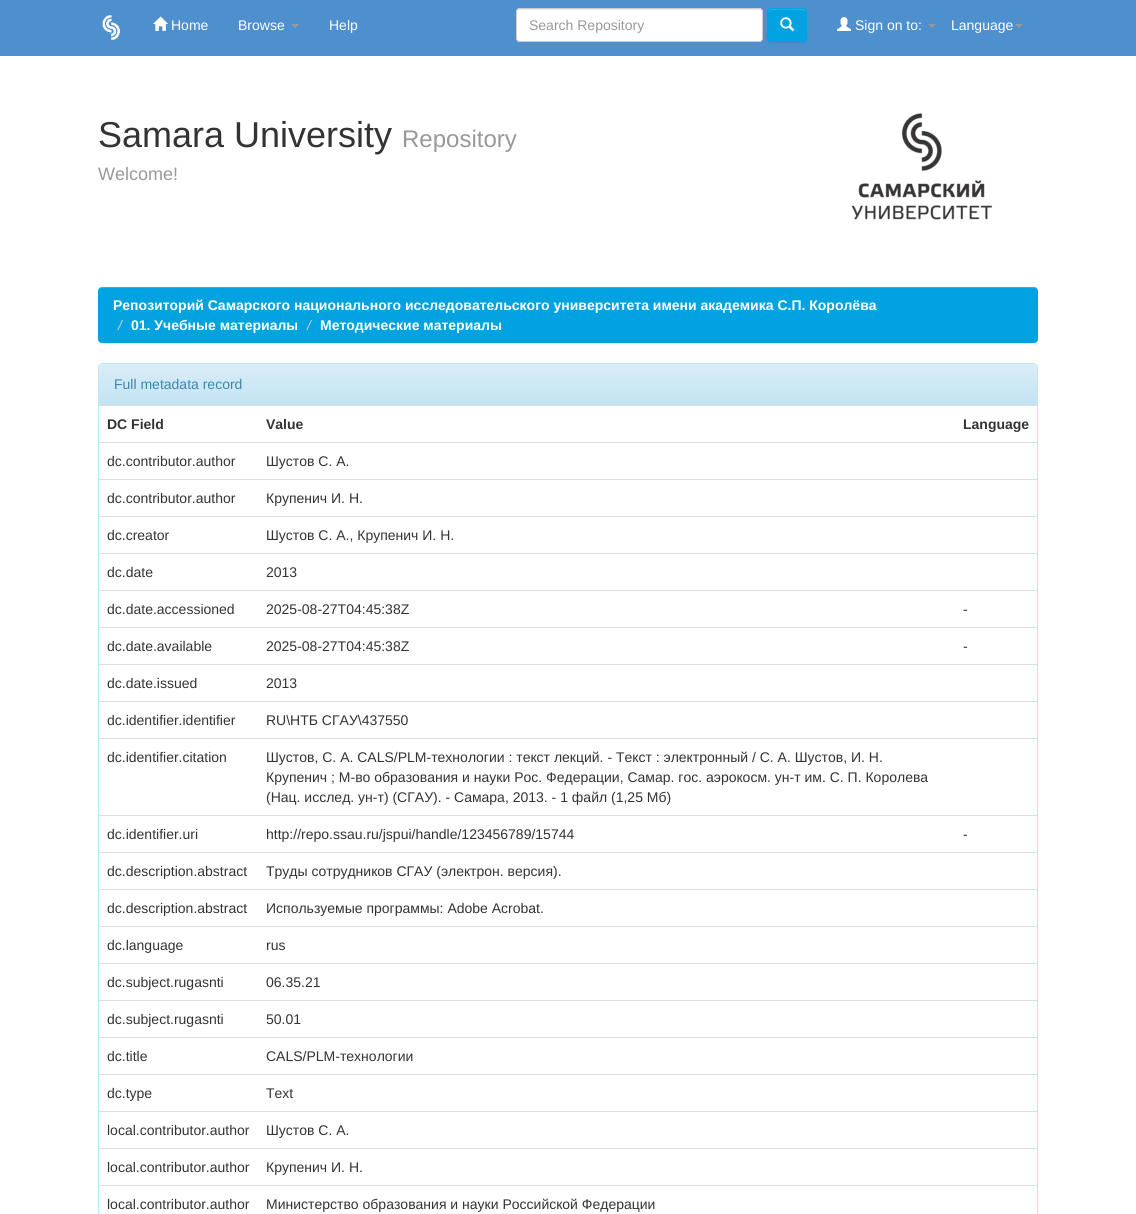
#include <cairo.h>
#include <math.h>
#include <stddef.h>


static void round_rect(cairo_t *cr, double x, double y, double w, double h, double r) {
    cairo_new_sub_path(cr);
    cairo_arc(cr, x + w - r, y + h - r, r, 0, M_PI / 2);
    cairo_arc(cr, x + r, y + h - r, r, M_PI / 2, M_PI);
    cairo_arc(cr, x + r, y + r, r, M_PI, 1.5 * M_PI);
    cairo_arc(cr, x + w - r, y + r, r, 1.5 * M_PI, 2 * M_PI);
    cairo_close_path(cr);
}

static void shadow(cairo_t *cr, double x, double y, double w, double h, double r, double blur, double alpha) {
    cairo_push_group_with_content(cr, CAIRO_CONTENT_ALPHA);
    cairo_set_operator(cr, CAIRO_OPERATOR_SOURCE);
    for (int i = 15; i >= -15 && fmin(w, h) + blur * i / 3 > 0; i -= 2) {
        double e = blur * i / 6;
        cairo_set_source_rgba(cr, 0, 0, 0, alpha * erfc((i - 1) / 8.5) / 2);
        round_rect(cr, x - e, y - e, w + 2 * e, h + 2 * e, fmax(0, fmin(r + e + blur * .6, fmin(w, h) / 2 + e)));
        cairo_fill(cr);
    }
    cairo_pattern_t *soft = cairo_pop_group(cr);
    cairo_mask(cr, soft);
    cairo_pattern_destroy(soft);
}

static void picture(cairo_t *cr, const char *path, double x, double y, double w, double h) {
    cairo_surface_t *image = cairo_image_surface_create_from_png(path);
    cairo_save(cr);
    cairo_set_source_surface(cr, image, x, y);
    cairo_rectangle(cr, x, y, w, h);
    cairo_fill(cr);
    cairo_restore(cr);
    cairo_surface_destroy(image);
}

int main(void) {
    cairo_surface_t *surface = cairo_image_surface_create(CAIRO_FORMAT_RGB24, 1136, 1214);
    cairo_t *cr = cairo_create(surface);
    cairo_font_options_t *options = cairo_font_options_create();
    cairo_font_options_set_hint_metrics(options, CAIRO_HINT_METRICS_OFF);
    cairo_font_options_set_hint_style(options, CAIRO_HINT_STYLE_NONE);
    cairo_set_font_options(cr, options);
    cairo_set_miter_limit(cr, 4);
    cairo_pattern_t *gradient;
    cairo_set_source_rgb(cr, 1, 1, 1);
    cairo_paint(cr);
    cairo_set_source_rgb(cr, 0.302, 0.565, 0.804);
    cairo_rectangle(cr, 0, 0, 1136, 56);
    cairo_fill(cr);
    picture(cr, "img1.png", 102, 15, 19, 25);
    picture(cr, "img2.png", 153, 16, 15, 15);
    cairo_select_font_face(cr, "Liberation Sans", CAIRO_FONT_SLANT_NORMAL, CAIRO_FONT_WEIGHT_NORMAL);
    cairo_set_font_size(cr, 14);
    cairo_set_source_rgb(cr, 1, 1, 1);
    cairo_move_to(cr, 171, 30);
    cairo_show_text(cr, "Home");
    cairo_move_to(cr, 238, 30);
    cairo_show_text(cr, "Browse");
    cairo_set_source_rgb(cr, 0.6, 0.6, 0.6);
    cairo_new_path(cr);
    cairo_move_to(cr, 291, 24);
    cairo_line_to(cr, 299, 24);
    cairo_line_to(cr, 295, 28);
    cairo_close_path(cr);
    cairo_fill(cr);
    cairo_set_source_rgb(cr, 1, 1, 1);
    cairo_move_to(cr, 329, 30);
    cairo_show_text(cr, "Help");
    round_rect(cr, 516, 8, 247, 34, 4);
    cairo_fill(cr);
    cairo_set_source_rgb(cr, 0.925, 0.925, 0.925);
    cairo_new_path(cr);
    cairo_move_to(cr, 520, 10);
    cairo_line_to(cr, 760, 10);
    cairo_line_to(cr, 762, 11);
    cairo_line_to(cr, 762, 13);
    cairo_curve_to(cr, 762, 11, 761, 9, 759, 9);
    cairo_line_to(cr, 520, 9);
    cairo_curve_to(cr, 518, 9, 517, 11, 517, 13);
    cairo_curve_to(cr, 517, 11, 518, 10, 520, 10);
    cairo_close_path(cr);
    cairo_fill(cr);
    round_rect(cr, 516.5, 8.5, 246, 33, 3.5);
    cairo_set_source_rgb(cr, 0.8, 0.8, 0.8);
    cairo_set_line_width(cr, 1);
    cairo_stroke(cr);
    cairo_set_source_rgb(cr, 0.6, 0.6, 0.6);
    cairo_move_to(cr, 529, 30);
    cairo_show_text(cr, "Search Repository");
    cairo_set_source_rgb(cr, 0, 0, 0);
    shadow(cr, 767, 9, 40, 34, 4, 0.5, 0.07);
    cairo_set_source_rgb(cr, 0, 0.639, 0.878);
    round_rect(cr, 767, 8, 40, 34, 4);
    cairo_fill(cr);
    cairo_set_source_rgb(cr, 0.149, 0.694, 0.898);
    cairo_new_path(cr);
    cairo_move_to(cr, 771, 10);
    cairo_line_to(cr, 798, 10);
    cairo_curve_to(cr, 803.5, 10, 805.5, 10.5, 806, 12.5);
    cairo_curve_to(cr, 806, 7.5, 801.5, 9, 797.5, 9);
    cairo_line_to(cr, 776.5, 9);
    cairo_curve_to(cr, 773, 9, 768, 8, 768, 12.5);
    cairo_curve_to(cr, 768.5, 11, 769.5, 10, 771, 10);
    cairo_close_path(cr);
    cairo_fill(cr);
    round_rect(cr, 767.5, 8.5, 39, 33, 3.5);
    cairo_set_source_rgb(cr, 0, 0.639, 0.878);
    cairo_stroke(cr);
    picture(cr, "img3.png", 780, 17, 15, 15);
    picture(cr, "img4.png", 837, 17, 14, 14);
    cairo_set_source_rgb(cr, 1, 1, 1);
    cairo_move_to(cr, 855, 30);
    cairo_show_text(cr, "Sign on to:");
    cairo_set_source_rgb(cr, 0.6, 0.6, 0.6);
    cairo_new_path(cr);
    cairo_move_to(cr, 928, 24);
    cairo_line_to(cr, 936, 24);
    cairo_line_to(cr, 932, 28);
    cairo_close_path(cr);
    cairo_fill(cr);
    cairo_set_source_rgb(cr, 1, 1, 1);
    cairo_move_to(cr, 951, 30);
    cairo_show_text(cr, "Language");
    cairo_set_source_rgb(cr, 0.6, 0.6, 0.6);
    cairo_new_path(cr);
    cairo_move_to(cr, 1015, 24);
    cairo_line_to(cr, 1023, 24);
    cairo_line_to(cr, 1019, 28);
    cairo_close_path(cr);
    cairo_fill(cr);
    cairo_set_font_size(cr, 36);
    cairo_set_source_rgb(cr, 0.2, 0.2, 0.2);
    cairo_move_to(cr, 98, 147);
    cairo_show_text(cr, "Samara University");
    cairo_set_font_size(cr, 24);
    cairo_set_source_rgb(cr, 0.6, 0.6, 0.6);
    cairo_move_to(cr, 402, 147);
    cairo_show_text(cr, "Repository");
    cairo_set_font_size(cr, 18);
    cairo_move_to(cr, 98, 180);
    cairo_show_text(cr, "Welcome!");
    picture(cr, "img5.png", 851, 113, 142, 107);
    cairo_set_source_rgb(cr, 0, 0, 0);
    shadow(cr, 98, 288, 940, 56, 4, 0.5, 0.07);
    cairo_set_source_rgb(cr, 0, 0.639, 0.878);
    round_rect(cr, 98, 287, 940, 56, 4);
    cairo_fill(cr);
    cairo_set_source_rgba(cr, 1, 1, 1, 0.15);
    cairo_new_path(cr);
    cairo_move_to(cr, 102, 288);
    cairo_line_to(cr, 1034, 288);
    cairo_curve_to(cr, 1036, 288, 1038, 290, 1038, 292);
    cairo_curve_to(cr, 1038, 289, 1037, 287, 1034, 287);
    cairo_line_to(cr, 102, 287);
    cairo_curve_to(cr, 99, 287, 98, 289, 98, 292);
    cairo_curve_to(cr, 98, 290, 100, 288, 102, 288);
    cairo_close_path(cr);
    cairo_fill(cr);
    cairo_select_font_face(cr, "Liberation Sans", CAIRO_FONT_SLANT_NORMAL, CAIRO_FONT_WEIGHT_BOLD);
    cairo_set_font_size(cr, 14);
    cairo_set_source_rgb(cr, 1, 1, 1);
    cairo_move_to(cr, 113, 310);
    cairo_show_text(cr, "Репозиторий Самарского национального исследовательского университета имени академика С.П. Королёва");
    cairo_select_font_face(cr, "Liberation Sans", CAIRO_FONT_SLANT_ITALIC, CAIRO_FONT_WEIGHT_NORMAL);
    cairo_set_source_rgb(cr, 0.8, 0.8, 0.8);
    cairo_move_to(cr, 118, 330);
    cairo_show_text(cr, "/");
    cairo_select_font_face(cr, "Liberation Sans", CAIRO_FONT_SLANT_NORMAL, CAIRO_FONT_WEIGHT_BOLD);
    cairo_set_source_rgb(cr, 1, 1, 1);
    cairo_move_to(cr, 131, 330);
    cairo_show_text(cr, "01. Учебные материалы");
    cairo_select_font_face(cr, "Liberation Sans", CAIRO_FONT_SLANT_ITALIC, CAIRO_FONT_WEIGHT_NORMAL);
    cairo_set_source_rgb(cr, 0.8, 0.8, 0.8);
    cairo_move_to(cr, 307, 330);
    cairo_show_text(cr, "/");
    cairo_select_font_face(cr, "Liberation Sans", CAIRO_FONT_SLANT_NORMAL, CAIRO_FONT_WEIGHT_BOLD);
    cairo_set_source_rgb(cr, 1, 1, 1);
    cairo_move_to(cr, 320, 330);
    cairo_show_text(cr, "Методические материалы");
    round_rect(cr, 98.5, 363.5, 939, 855, 3.5);
    cairo_set_source_rgb(cr, 0.737, 0.91, 0.945);
    cairo_stroke(cr);
    gradient = cairo_pattern_create_linear(568, 364, 568, 404);
    cairo_pattern_add_color_stop_rgba(gradient, 0, 0.851, 0.929, 0.969, 1);
    cairo_pattern_add_color_stop_rgba(gradient, 1, 0.769, 0.89, 0.953, 1);
    cairo_set_source(cr, gradient);
    cairo_pattern_destroy(gradient);
    cairo_new_path(cr);
    cairo_move_to(cr, 102, 364);
    cairo_line_to(cr, 1034, 364);
    cairo_curve_to(cr, 1035.5, 364, 1037, 365.5, 1037, 367);
    cairo_line_to(cr, 1037, 404);
    cairo_line_to(cr, 99, 404);
    cairo_line_to(cr, 99, 367);
    cairo_curve_to(cr, 99, 365.5, 100.5, 364, 102, 364);
    cairo_close_path(cr);
    cairo_fill(cr);
    cairo_set_source_rgb(cr, 0.737, 0.91, 0.945);
    cairo_rectangle(cr, 99, 404, 938, 1);
    cairo_fill(cr);
    cairo_select_font_face(cr, "Liberation Sans", CAIRO_FONT_SLANT_NORMAL, CAIRO_FONT_WEIGHT_NORMAL);
    cairo_set_source_rgb(cr, 0.227, 0.529, 0.678);
    cairo_move_to(cr, 114, 389);
    cairo_show_text(cr, "Full metadata record");
    cairo_select_font_face(cr, "Liberation Sans", CAIRO_FONT_SLANT_NORMAL, CAIRO_FONT_WEIGHT_BOLD);
    cairo_set_source_rgb(cr, 0.2, 0.2, 0.2);
    cairo_move_to(cr, 107, 429);
    cairo_show_text(cr, "DC Field");
    cairo_move_to(cr, 266, 429);
    cairo_show_text(cr, "Value");
    cairo_set_source_rgb(cr, 0.867, 0.867, 0.867);
    cairo_rectangle(cr, 99, 405, 939, 1);
    cairo_fill(cr);
    cairo_set_source_rgb(cr, 0.2, 0.2, 0.2);
    cairo_move_to(cr, 963, 429);
    cairo_show_text(cr, "Language");
    cairo_set_source_rgb(cr, 0.867, 0.867, 0.867);
    cairo_rectangle(cr, 99, 442, 939, 1);
    cairo_fill(cr);
    cairo_select_font_face(cr, "Liberation Sans", CAIRO_FONT_SLANT_NORMAL, CAIRO_FONT_WEIGHT_NORMAL);
    cairo_set_source_rgb(cr, 0.2, 0.2, 0.2);
    cairo_move_to(cr, 107, 466);
    cairo_show_text(cr, "dc.contributor.author");
    cairo_move_to(cr, 266, 466);
    cairo_show_text(cr, "Шустов С. А.");
    cairo_set_source_rgb(cr, 0.867, 0.867, 0.867);
    cairo_rectangle(cr, 99, 479, 939, 1);
    cairo_fill(cr);
    cairo_set_source_rgb(cr, 0.2, 0.2, 0.2);
    cairo_move_to(cr, 107, 503);
    cairo_show_text(cr, "dc.contributor.author");
    cairo_move_to(cr, 266, 503);
    cairo_show_text(cr, "Крупенич И. Н.");
    cairo_set_source_rgb(cr, 0.867, 0.867, 0.867);
    cairo_rectangle(cr, 99, 516, 939, 1);
    cairo_fill(cr);
    cairo_set_source_rgb(cr, 0.2, 0.2, 0.2);
    cairo_move_to(cr, 107, 540);
    cairo_show_text(cr, "dc.creator");
    cairo_move_to(cr, 266, 540);
    cairo_show_text(cr, "Шустов С. А., Крупенич И. Н.");
    cairo_set_source_rgb(cr, 0.867, 0.867, 0.867);
    cairo_rectangle(cr, 99, 553, 939, 1);
    cairo_fill(cr);
    cairo_set_source_rgb(cr, 0.2, 0.2, 0.2);
    cairo_move_to(cr, 107, 577);
    cairo_show_text(cr, "dc.date");
    cairo_move_to(cr, 266, 577);
    cairo_show_text(cr, "2013");
    cairo_move_to(cr, 107, 614);
    cairo_show_text(cr, "dc.date.accessioned");
    cairo_move_to(cr, 266, 614);
    cairo_show_text(cr, "2025-08-27T04:45:38Z");
    cairo_set_source_rgb(cr, 0.867, 0.867, 0.867);
    cairo_rectangle(cr, 99, 590, 939, 1);
    cairo_fill(cr);
    cairo_set_source_rgb(cr, 0.2, 0.2, 0.2);
    cairo_move_to(cr, 963, 614);
    cairo_show_text(cr, "-");
    cairo_move_to(cr, 107, 651);
    cairo_show_text(cr, "dc.date.available");
    cairo_move_to(cr, 266, 651);
    cairo_show_text(cr, "2025-08-27T04:45:38Z");
    cairo_set_source_rgb(cr, 0.867, 0.867, 0.867);
    cairo_rectangle(cr, 99, 627, 939, 1);
    cairo_fill(cr);
    cairo_set_source_rgb(cr, 0.2, 0.2, 0.2);
    cairo_move_to(cr, 963, 651);
    cairo_show_text(cr, "-");
    cairo_set_source_rgb(cr, 0.867, 0.867, 0.867);
    cairo_rectangle(cr, 99, 664, 939, 1);
    cairo_fill(cr);
    cairo_set_source_rgb(cr, 0.2, 0.2, 0.2);
    cairo_move_to(cr, 107, 688);
    cairo_show_text(cr, "dc.date.issued");
    cairo_move_to(cr, 266, 688);
    cairo_show_text(cr, "2013");
    cairo_set_source_rgb(cr, 0.867, 0.867, 0.867);
    cairo_rectangle(cr, 99, 701, 939, 1);
    cairo_fill(cr);
    cairo_set_source_rgb(cr, 0.2, 0.2, 0.2);
    cairo_move_to(cr, 107, 725);
    cairo_show_text(cr, "dc.identifier.identifier");
    cairo_move_to(cr, 266, 725);
    cairo_show_text(cr, "RU\\НТБ СГАУ\\437550");
    cairo_set_source_rgb(cr, 0.867, 0.867, 0.867);
    cairo_rectangle(cr, 99, 738, 939, 1);
    cairo_fill(cr);
    cairo_set_source_rgb(cr, 0.2, 0.2, 0.2);
    cairo_move_to(cr, 107, 762);
    cairo_show_text(cr, "dc.identifier.citation");
    cairo_move_to(cr, 266, 762);
    cairo_show_text(cr, "Шустов, С. А. CALS/PLM-технологии : текст лекций. - Текст : электронный / С. А. Шустов, И. Н.");
    cairo_move_to(cr, 266, 782);
    cairo_show_text(cr, "Крупенич ; М-во образования и науки Рос. Федерации, Самар. гос. аэрокосм. ун-т им. С. П. Королева");
    cairo_move_to(cr, 266, 802);
    cairo_show_text(cr, "(Нац. исслед. ун-т) (СГАУ). - Самара, 2013. - 1 файл (1,25 Мб)");
    cairo_move_to(cr, 107, 839);
    cairo_show_text(cr, "dc.identifier.uri");
    cairo_move_to(cr, 266, 839);
    cairo_show_text(cr, "http://repo.ssau.ru/jspui/handle/123456789/15744");
    cairo_set_source_rgb(cr, 0.867, 0.867, 0.867);
    cairo_rectangle(cr, 99, 815, 939, 1);
    cairo_fill(cr);
    cairo_set_source_rgb(cr, 0.2, 0.2, 0.2);
    cairo_move_to(cr, 963, 839);
    cairo_show_text(cr, "-");
    cairo_set_source_rgb(cr, 0.867, 0.867, 0.867);
    cairo_rectangle(cr, 99, 852, 939, 1);
    cairo_fill(cr);
    cairo_set_source_rgb(cr, 0.2, 0.2, 0.2);
    cairo_move_to(cr, 107, 876);
    cairo_show_text(cr, "dc.description.abstract");
    cairo_move_to(cr, 266, 876);
    cairo_show_text(cr, "Труды сотрудников СГАУ (электрон. версия).");
    cairo_set_source_rgb(cr, 0.867, 0.867, 0.867);
    cairo_rectangle(cr, 99, 889, 939, 1);
    cairo_fill(cr);
    cairo_set_source_rgb(cr, 0.2, 0.2, 0.2);
    cairo_move_to(cr, 107, 913);
    cairo_show_text(cr, "dc.description.abstract");
    cairo_move_to(cr, 266, 913);
    cairo_show_text(cr, "Используемые программы: Adobe Acrobat.");
    cairo_set_source_rgb(cr, 0.867, 0.867, 0.867);
    cairo_rectangle(cr, 99, 926, 939, 1);
    cairo_fill(cr);
    cairo_set_source_rgb(cr, 0.2, 0.2, 0.2);
    cairo_move_to(cr, 107, 950);
    cairo_show_text(cr, "dc.language");
    cairo_move_to(cr, 266, 950);
    cairo_show_text(cr, "rus");
    cairo_set_source_rgb(cr, 0.867, 0.867, 0.867);
    cairo_rectangle(cr, 99, 963, 939, 1);
    cairo_fill(cr);
    cairo_set_source_rgb(cr, 0.2, 0.2, 0.2);
    cairo_move_to(cr, 107, 987);
    cairo_show_text(cr, "dc.subject.rugasnti");
    cairo_move_to(cr, 266, 987);
    cairo_show_text(cr, "06.35.21");
    cairo_set_source_rgb(cr, 0.867, 0.867, 0.867);
    cairo_rectangle(cr, 99, 1000, 939, 1);
    cairo_fill(cr);
    cairo_set_source_rgb(cr, 0.2, 0.2, 0.2);
    cairo_move_to(cr, 107, 1024);
    cairo_show_text(cr, "dc.subject.rugasnti");
    cairo_move_to(cr, 266, 1024);
    cairo_show_text(cr, "50.01");
    cairo_set_source_rgb(cr, 0.867, 0.867, 0.867);
    cairo_rectangle(cr, 99, 1037, 939, 1);
    cairo_fill(cr);
    cairo_set_source_rgb(cr, 0.2, 0.2, 0.2);
    cairo_move_to(cr, 107, 1061);
    cairo_show_text(cr, "dc.title");
    cairo_move_to(cr, 266, 1061);
    cairo_show_text(cr, "CALS/PLM-технологии");
    cairo_set_source_rgb(cr, 0.867, 0.867, 0.867);
    cairo_rectangle(cr, 99, 1074, 939, 1);
    cairo_fill(cr);
    cairo_set_source_rgb(cr, 0.2, 0.2, 0.2);
    cairo_move_to(cr, 107, 1098);
    cairo_show_text(cr, "dc.type");
    cairo_move_to(cr, 266, 1098);
    cairo_show_text(cr, "Text");
    cairo_set_source_rgb(cr, 0.867, 0.867, 0.867);
    cairo_rectangle(cr, 99, 1111, 939, 1);
    cairo_fill(cr);
    cairo_set_source_rgb(cr, 0.2, 0.2, 0.2);
    cairo_move_to(cr, 107, 1135);
    cairo_show_text(cr, "local.contributor.author");
    cairo_move_to(cr, 266, 1135);
    cairo_show_text(cr, "Шустов С. А.");
    cairo_set_source_rgb(cr, 0.867, 0.867, 0.867);
    cairo_rectangle(cr, 99, 1148, 939, 1);
    cairo_fill(cr);
    cairo_set_source_rgb(cr, 0.2, 0.2, 0.2);
    cairo_move_to(cr, 107, 1172);
    cairo_show_text(cr, "local.contributor.author");
    cairo_move_to(cr, 266, 1172);
    cairo_show_text(cr, "Крупенич И. Н.");
    cairo_set_source_rgb(cr, 0.867, 0.867, 0.867);
    cairo_rectangle(cr, 99, 1185, 939, 1);
    cairo_fill(cr);
    cairo_set_source_rgb(cr, 0.2, 0.2, 0.2);
    cairo_move_to(cr, 107, 1209);
    cairo_show_text(cr, "local.contributor.author");
    cairo_move_to(cr, 266, 1209);
    cairo_show_text(cr, "Министерство образования и науки Российской Федерации");
    cairo_surface_write_to_png(surface, "page.png");
    cairo_font_options_destroy(options);
    cairo_destroy(cr);
    cairo_surface_destroy(surface);
    return 0;
}
